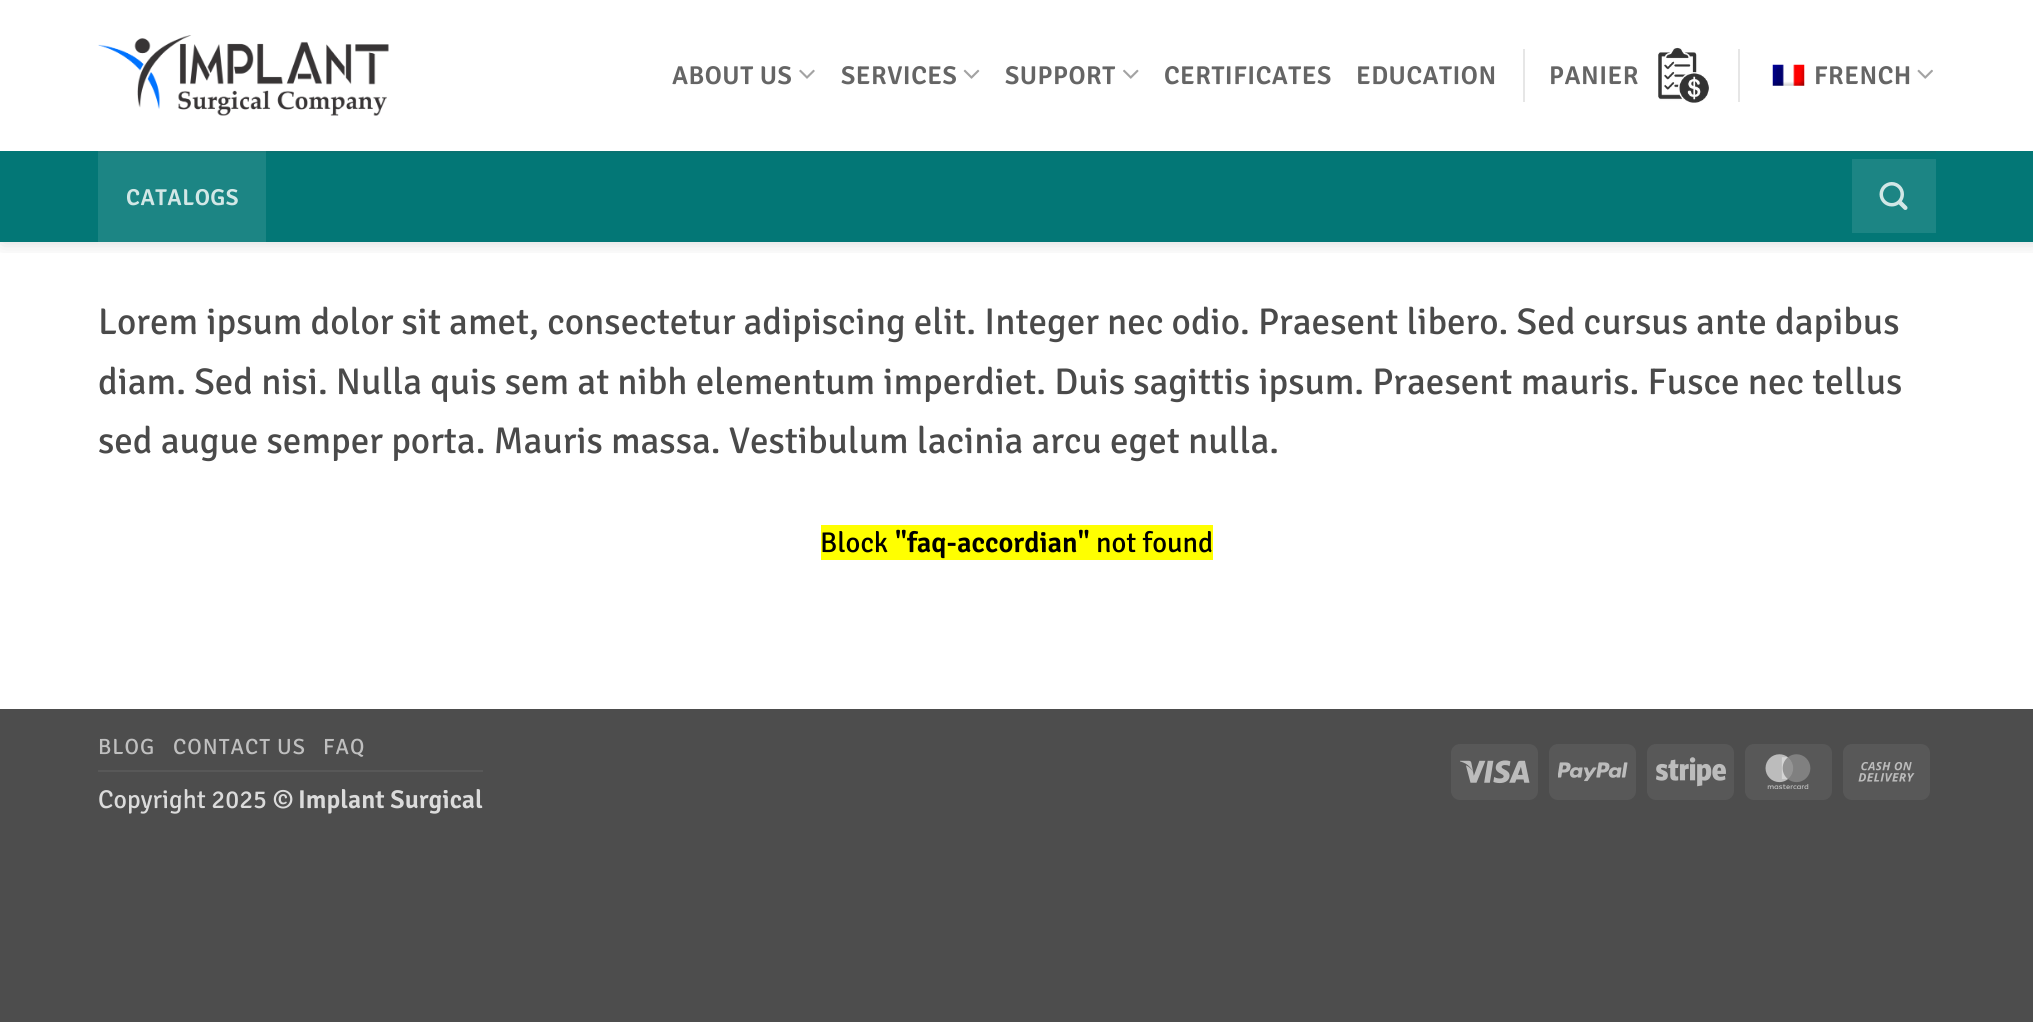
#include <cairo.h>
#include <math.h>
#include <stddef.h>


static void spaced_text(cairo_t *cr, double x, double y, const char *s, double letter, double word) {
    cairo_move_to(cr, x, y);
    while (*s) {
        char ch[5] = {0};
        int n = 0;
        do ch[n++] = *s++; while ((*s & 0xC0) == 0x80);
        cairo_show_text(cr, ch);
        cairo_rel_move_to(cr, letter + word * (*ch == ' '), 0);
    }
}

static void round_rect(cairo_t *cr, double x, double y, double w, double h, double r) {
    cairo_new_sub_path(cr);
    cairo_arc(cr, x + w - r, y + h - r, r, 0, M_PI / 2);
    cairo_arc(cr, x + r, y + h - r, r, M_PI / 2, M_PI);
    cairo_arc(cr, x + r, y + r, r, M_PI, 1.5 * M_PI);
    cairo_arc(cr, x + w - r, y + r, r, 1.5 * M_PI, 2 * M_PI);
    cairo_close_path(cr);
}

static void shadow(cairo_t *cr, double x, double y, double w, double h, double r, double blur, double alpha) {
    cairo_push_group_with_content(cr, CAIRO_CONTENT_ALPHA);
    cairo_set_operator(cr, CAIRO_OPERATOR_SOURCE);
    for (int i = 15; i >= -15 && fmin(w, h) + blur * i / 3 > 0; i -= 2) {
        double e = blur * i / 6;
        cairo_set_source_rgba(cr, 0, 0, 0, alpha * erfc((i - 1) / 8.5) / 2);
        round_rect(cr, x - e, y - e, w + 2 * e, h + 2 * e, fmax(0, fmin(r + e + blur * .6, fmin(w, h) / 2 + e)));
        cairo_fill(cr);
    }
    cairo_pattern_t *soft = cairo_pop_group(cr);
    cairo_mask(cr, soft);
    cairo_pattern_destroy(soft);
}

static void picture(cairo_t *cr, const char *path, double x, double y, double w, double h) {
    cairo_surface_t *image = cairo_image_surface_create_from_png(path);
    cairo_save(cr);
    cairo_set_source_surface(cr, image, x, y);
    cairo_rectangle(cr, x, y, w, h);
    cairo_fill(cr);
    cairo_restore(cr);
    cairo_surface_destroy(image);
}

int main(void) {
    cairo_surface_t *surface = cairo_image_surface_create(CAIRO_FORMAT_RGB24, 2033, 1022);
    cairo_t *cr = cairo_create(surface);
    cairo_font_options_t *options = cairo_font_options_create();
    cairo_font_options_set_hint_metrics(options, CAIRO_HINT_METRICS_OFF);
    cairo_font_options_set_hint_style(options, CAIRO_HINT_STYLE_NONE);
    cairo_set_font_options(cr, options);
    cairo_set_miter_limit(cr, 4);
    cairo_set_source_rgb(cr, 0.302, 0.302, 0.302);
    cairo_paint(cr);
    cairo_set_source_rgb(cr, 1, 1, 1);
    cairo_rectangle(cr, 0, 0, 2033, 709);
    cairo_fill(cr);
    cairo_save(cr);
    cairo_rectangle(cr, 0, 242, 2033, 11);
    cairo_clip(cr);
    cairo_set_source_rgb(cr, 0, 0, 0);
    shadow(cr, 2, 2, 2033, 241, 0, 9, 0.15);
    cairo_restore(cr);
    picture(cr, "img1.png", 98, 35, 291, 81);
    cairo_select_font_face(cr, "Signika SemiBold", CAIRO_FONT_SLANT_NORMAL, CAIRO_FONT_WEIGHT_NORMAL);
    cairo_set_font_size(cr, 25.75);
    cairo_set_source_rgb(cr, 0.396, 0.396, 0.396);
    spaced_text(cr, 672, 84, "ABOUT US", 0.5, 0);
    picture(cr, "img2.png", 799, 69, 16, 10);
    spaced_text(cr, 841, 84, "SERVICES", 0.5, 0);
    picture(cr, "img3.png", 963, 69, 17, 10);
    spaced_text(cr, 1005, 84, "SUPPORT", 0.5, 0);
    picture(cr, "img4.png", 1123, 69, 16, 10);
    spaced_text(cr, 1164, 84, "CERTIFICATES", 0.5, 0);
    spaced_text(cr, 1356, 84, "EDUCATION", 0.5, 0);
    cairo_set_source_rgb(cr, 0.902, 0.902, 0.902);
    cairo_rectangle(cr, 1523, 49, 2, 53);
    cairo_fill(cr);
    cairo_set_source_rgb(cr, 0.396, 0.396, 0.396);
    spaced_text(cr, 1549, 84, "PANIER", 0.5, 0);
    picture(cr, "img5.png", 1658, 47, 51, 56);
    cairo_set_source_rgb(cr, 0.902, 0.902, 0.902);
    cairo_rectangle(cr, 1738, 49, 2, 53);
    cairo_fill(cr);
    picture(cr, "img6.png", 1772, 64, 33, 22);
    cairo_set_source_rgb(cr, 0.396, 0.396, 0.396);
    spaced_text(cr, 1814, 84, "FRENCH", 0.5, 0);
    picture(cr, "img7.png", 1917, 69, 16, 10);
    cairo_set_source_rgb(cr, 0.012, 0.467, 0.463);
    cairo_rectangle(cr, 0, 151, 2033, 91);
    cairo_fill(cr);
    cairo_set_source_rgb(cr, 0.11, 0.522, 0.518);
    cairo_rectangle(cr, 98, 151, 168, 91);
    cairo_fill(cr);
    cairo_set_source_rgba(cr, 0.29, 0.29, 0.29, 0.1);
    cairo_rectangle(cr, 98, 151, 1838, 2);
    cairo_fill(cr);
    cairo_set_font_size(cr, 23);
    cairo_set_source_rgb(cr, 0.824, 0.906, 0.902);
    spaced_text(cr, 126, 205, "CATALOGS", 0.5, 0);
    cairo_set_source_rgb(cr, 0.11, 0.522, 0.518);
    cairo_rectangle(cr, 1852, 159, 84, 74);
    cairo_fill(cr);
    picture(cr, "img8.png", 1879, 182, 29, 28);
    cairo_select_font_face(cr, "Signika", CAIRO_FONT_SLANT_NORMAL, CAIRO_FONT_WEIGHT_NORMAL);
    cairo_set_font_size(cr, 37.15);
    cairo_set_source_rgb(cr, 0.29, 0.29, 0.29);
    cairo_move_to(cr, 98, 334);
    cairo_show_text(cr, "Lorem ipsum dolor sit amet, consectetur adipiscing elit. Integer nec odio. Praesent libero. Sed cursus ante dapibus");
    cairo_move_to(cr, 98, 394);
    cairo_show_text(cr, "diam. Sed nisi. Nulla quis sem at nibh elementum imperdiet. Duis sagittis ipsum. Praesent mauris. Fusce nec tellus");
    cairo_move_to(cr, 98, 453);
    cairo_show_text(cr, "sed augue semper porta. Mauris massa. Vestibulum lacinia arcu eget nulla.");
    cairo_set_source_rgb(cr, 1, 1, 0);
    cairo_rectangle(cr, 821, 525, 392, 35);
    cairo_fill(cr);
    cairo_set_font_size(cr, 28.5);
    cairo_set_source_rgb(cr, 0, 0, 0);
    cairo_move_to(cr, 820, 552);
    cairo_show_text(cr, "Block");
    cairo_select_font_face(cr, "Signika SemiBold", CAIRO_FONT_SLANT_NORMAL, CAIRO_FONT_WEIGHT_NORMAL);
    cairo_move_to(cr, 895, 552);
    cairo_show_text(cr, "\"faq-accordian\"");
    cairo_select_font_face(cr, "Signika", CAIRO_FONT_SLANT_NORMAL, CAIRO_FONT_WEIGHT_NORMAL);
    cairo_move_to(cr, 1096, 552);
    cairo_show_text(cr, "not found");
    cairo_set_source_rgb(cr, 0.345, 0.345, 0.345);
    cairo_rectangle(cr, 98, 770, 385, 2);
    cairo_fill(cr);
    cairo_set_font_size(cr, 22);
    cairo_set_source_rgb(cr, 0.749, 0.749, 0.749);
    spaced_text(cr, 98, 754, "BLOG", 1, 0);
    spaced_text(cr, 173, 754, "CONTACT US", 1, 0);
    spaced_text(cr, 323, 754, "FAQ", 1, 0);
    cairo_set_font_size(cr, 25.75);
    cairo_set_source_rgb(cr, 0.859, 0.859, 0.859);
    cairo_move_to(cr, 98, 808);
    cairo_show_text(cr, "Copyright 2025 ©");
    cairo_select_font_face(cr, "Signika SemiBold", CAIRO_FONT_SLANT_NORMAL, CAIRO_FONT_WEIGHT_NORMAL);
    cairo_move_to(cr, 298, 808);
    cairo_show_text(cr, "Implant Surgical");
    cairo_set_source_rgb(cr, 0.345, 0.345, 0.345);
    round_rect(cr, 1451, 744, 87, 56, 9);
    cairo_fill(cr);
    picture(cr, "img9.png", 1460, 760, 70, 24);
    round_rect(cr, 1549, 744, 87, 56, 9);
    cairo_fill(cr);
    picture(cr, "img10.png", 1558, 762, 70, 20);
    round_rect(cr, 1647, 744, 87, 56, 9);
    cairo_fill(cr);
    picture(cr, "img11.png", 1656, 757, 70, 30);
    round_rect(cr, 1745, 744, 87, 56, 9);
    cairo_fill(cr);
    picture(cr, "img12.png", 1765, 754, 46, 35);
    round_rect(cr, 1843, 744, 87, 56, 9);
    cairo_fill(cr);
    picture(cr, "img13.png", 1858, 762, 57, 20);
    cairo_surface_write_to_png(surface, "page.png");
    cairo_font_options_destroy(options);
    cairo_destroy(cr);
    cairo_surface_destroy(surface);
    return 0;
}
